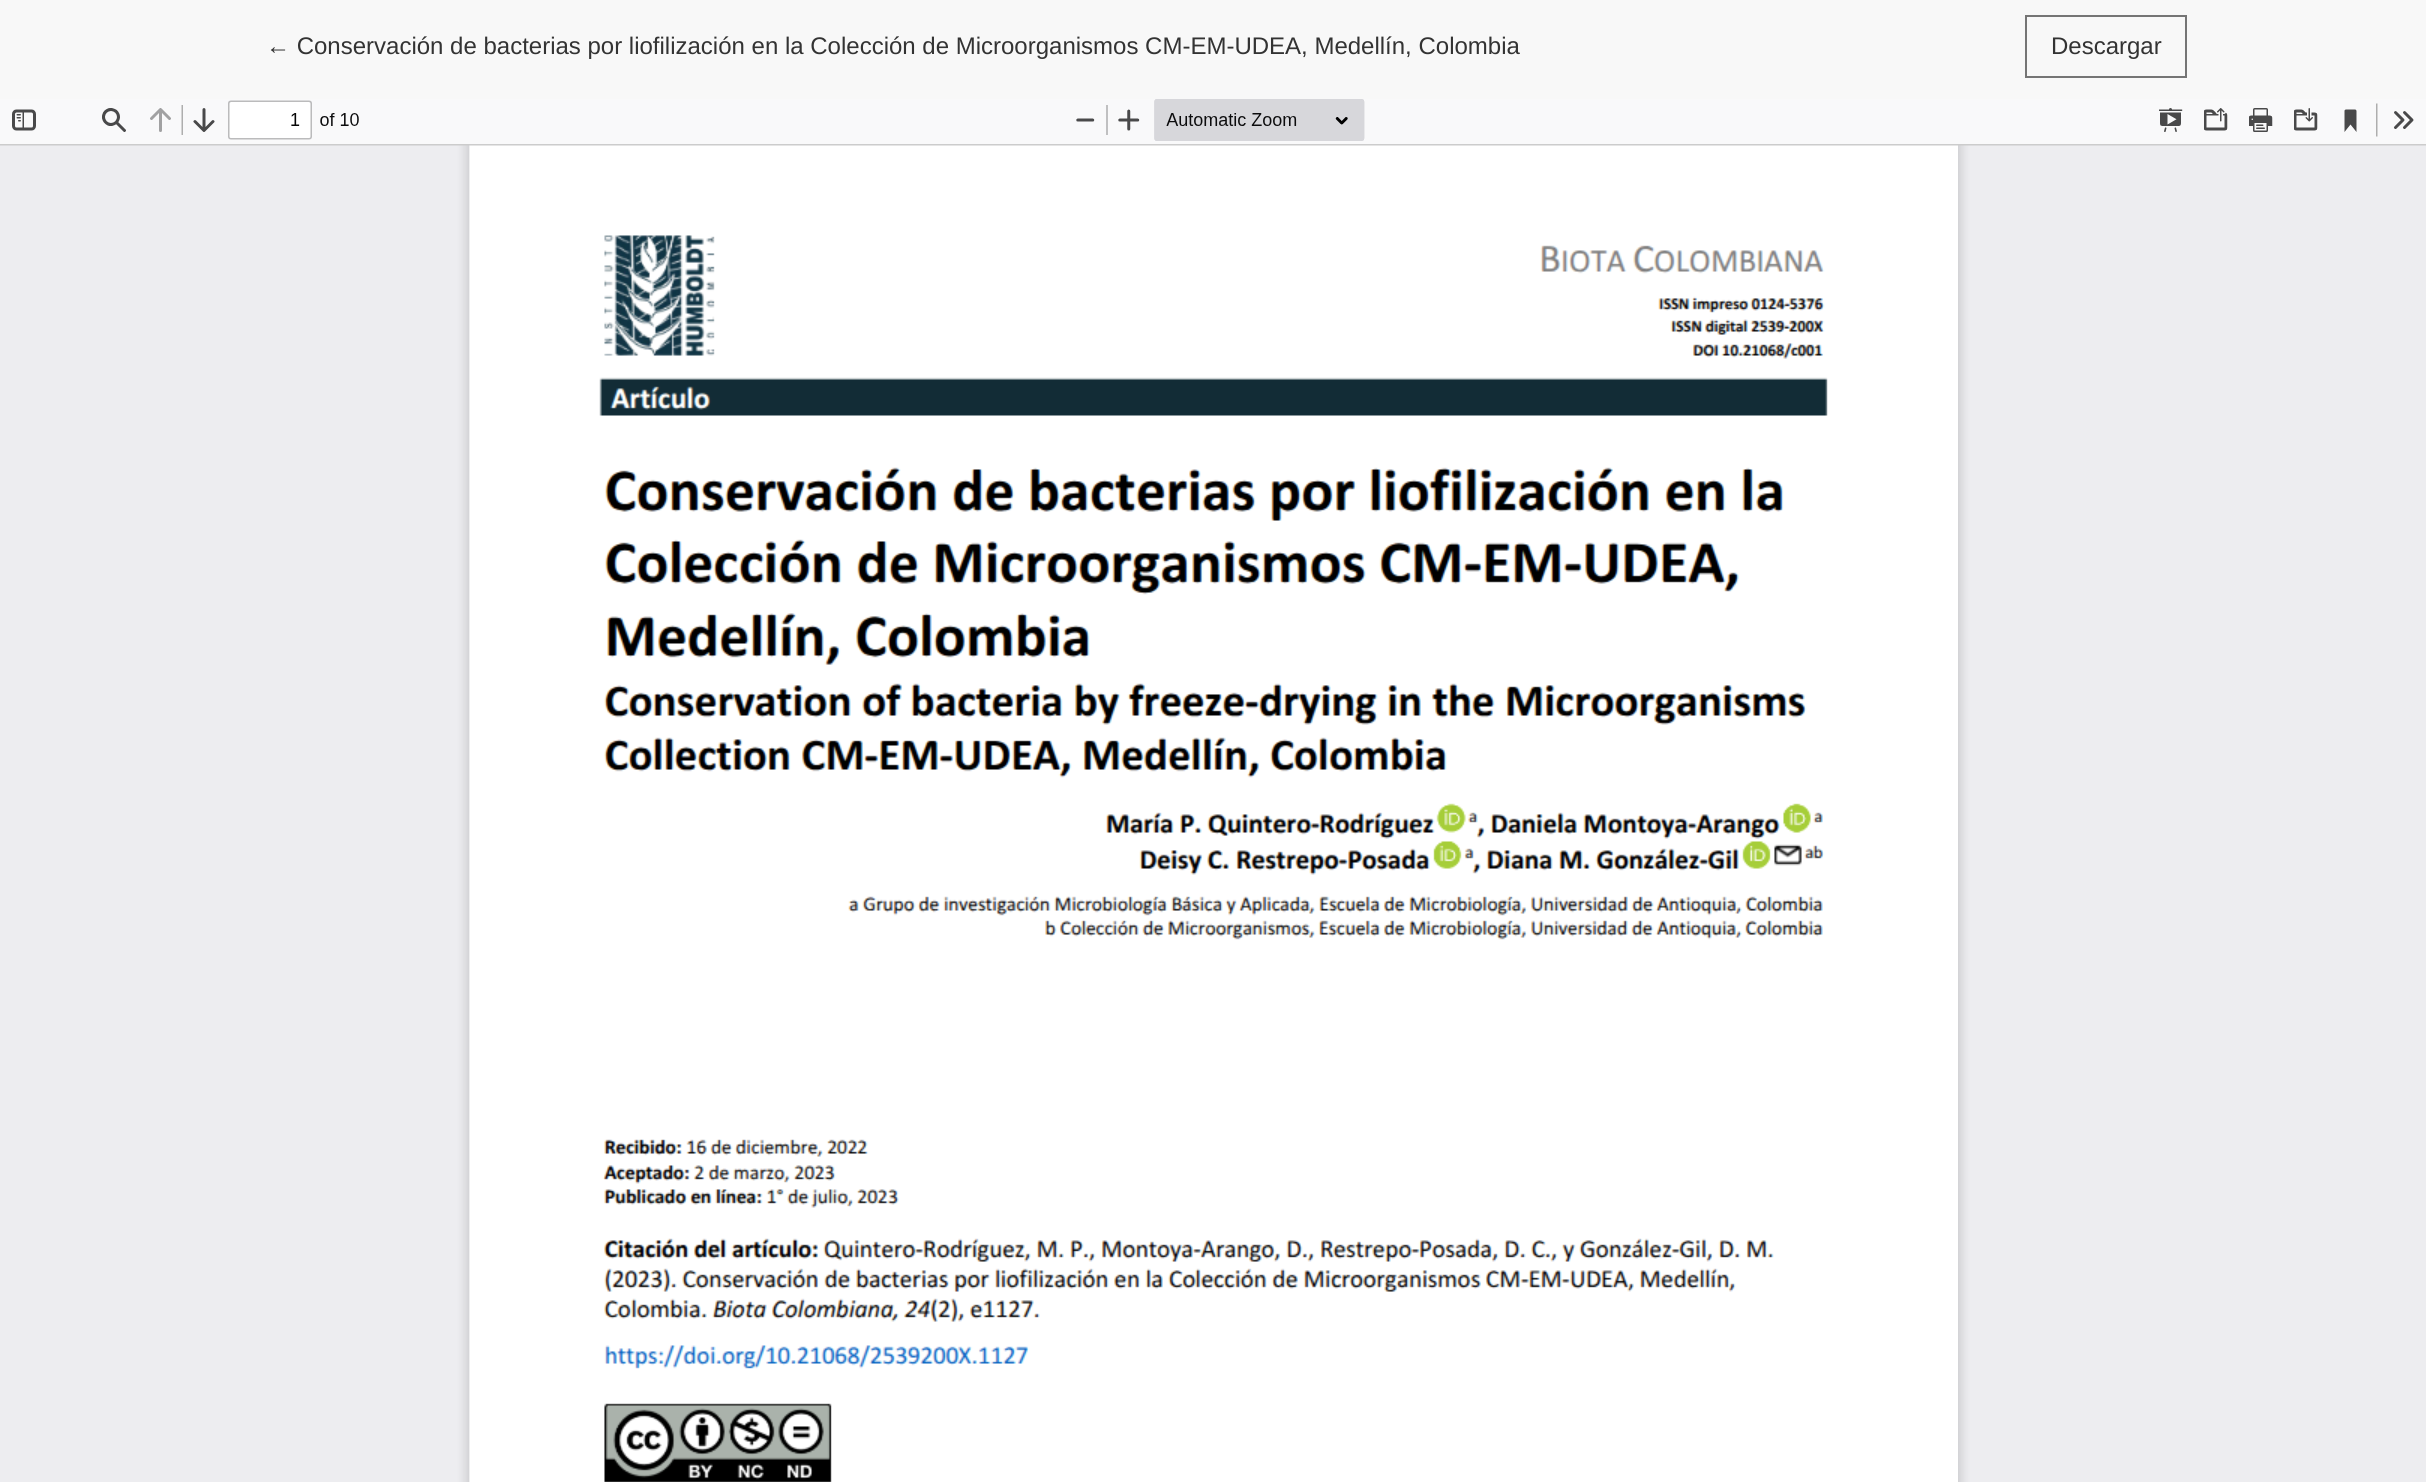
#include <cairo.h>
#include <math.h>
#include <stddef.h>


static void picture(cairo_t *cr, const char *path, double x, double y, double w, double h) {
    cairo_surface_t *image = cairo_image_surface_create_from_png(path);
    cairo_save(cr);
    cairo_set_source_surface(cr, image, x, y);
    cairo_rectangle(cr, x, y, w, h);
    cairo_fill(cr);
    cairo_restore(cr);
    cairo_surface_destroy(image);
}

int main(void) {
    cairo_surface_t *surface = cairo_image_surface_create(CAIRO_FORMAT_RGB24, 2426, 1482);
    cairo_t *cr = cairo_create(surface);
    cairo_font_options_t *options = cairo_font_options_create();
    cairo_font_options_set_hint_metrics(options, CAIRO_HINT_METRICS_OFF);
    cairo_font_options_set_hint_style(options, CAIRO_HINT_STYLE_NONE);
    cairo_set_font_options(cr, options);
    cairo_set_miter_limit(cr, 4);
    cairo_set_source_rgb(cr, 0.969, 0.969, 0.969);
    cairo_paint(cr);
    cairo_select_font_face(cr, "Liberation Sans", CAIRO_FONT_SLANT_NORMAL, CAIRO_FONT_WEIGHT_NORMAL);
    cairo_set_font_size(cr, 24);
    cairo_set_source_rgb(cr, 0.2, 0.2, 0.2);
    cairo_move_to(cr, 266, 54);
    cairo_show_text(cr, "← Conservación de bacterias por liofilización en la Colección de Microorganismos CM-EM-UDEA, Medellín, Colombia");
    cairo_rectangle(cr, 2026, 16, 160, 61);
    cairo_set_source_rgb(cr, 0.459, 0.459, 0.459);
    cairo_stroke(cr);
    cairo_set_source_rgb(cr, 0.2, 0.2, 0.2);
    cairo_move_to(cr, 2051, 54);
    cairo_show_text(cr, "Descargar");
    picture(cr, "img1.png", 0, 99, 2426, 1383);
    cairo_surface_write_to_png(surface, "page.png");
    cairo_font_options_destroy(options);
    cairo_destroy(cr);
    cairo_surface_destroy(surface);
    return 0;
}
